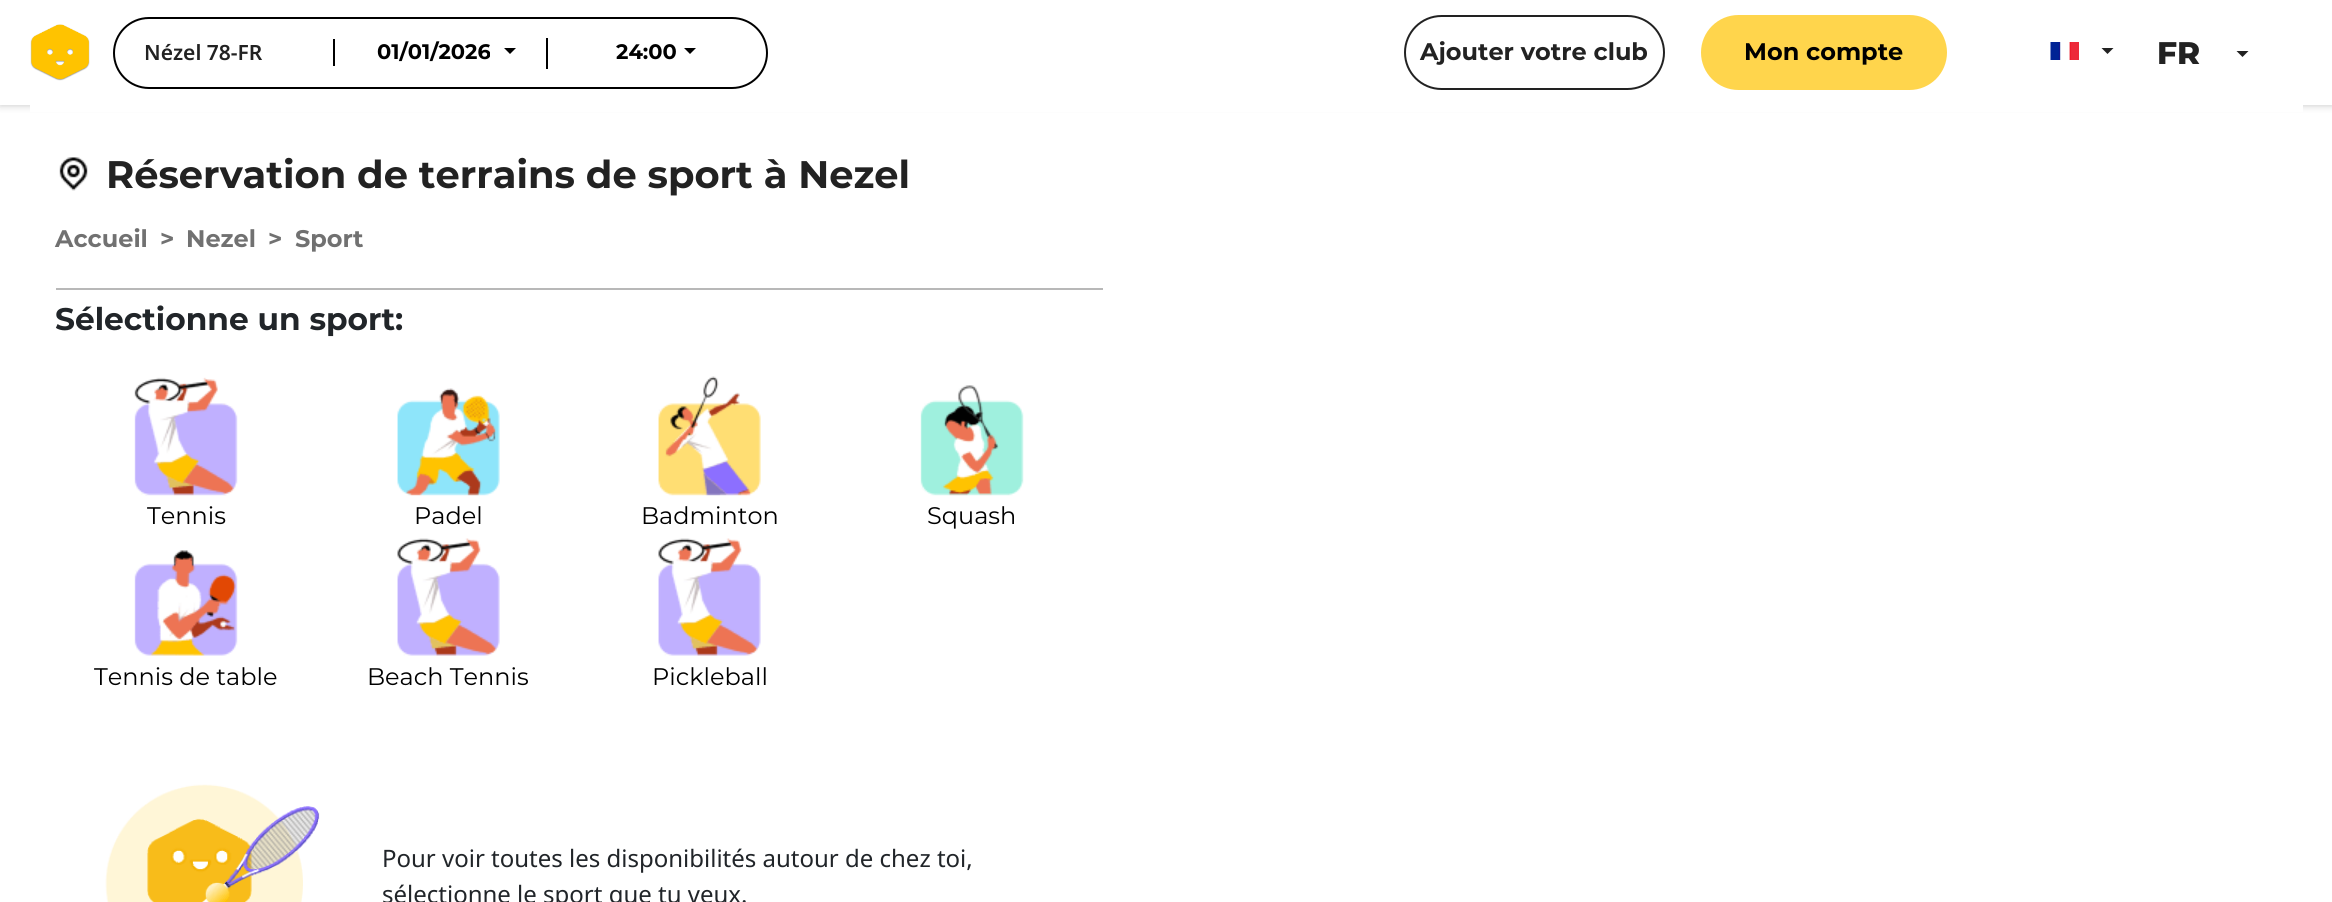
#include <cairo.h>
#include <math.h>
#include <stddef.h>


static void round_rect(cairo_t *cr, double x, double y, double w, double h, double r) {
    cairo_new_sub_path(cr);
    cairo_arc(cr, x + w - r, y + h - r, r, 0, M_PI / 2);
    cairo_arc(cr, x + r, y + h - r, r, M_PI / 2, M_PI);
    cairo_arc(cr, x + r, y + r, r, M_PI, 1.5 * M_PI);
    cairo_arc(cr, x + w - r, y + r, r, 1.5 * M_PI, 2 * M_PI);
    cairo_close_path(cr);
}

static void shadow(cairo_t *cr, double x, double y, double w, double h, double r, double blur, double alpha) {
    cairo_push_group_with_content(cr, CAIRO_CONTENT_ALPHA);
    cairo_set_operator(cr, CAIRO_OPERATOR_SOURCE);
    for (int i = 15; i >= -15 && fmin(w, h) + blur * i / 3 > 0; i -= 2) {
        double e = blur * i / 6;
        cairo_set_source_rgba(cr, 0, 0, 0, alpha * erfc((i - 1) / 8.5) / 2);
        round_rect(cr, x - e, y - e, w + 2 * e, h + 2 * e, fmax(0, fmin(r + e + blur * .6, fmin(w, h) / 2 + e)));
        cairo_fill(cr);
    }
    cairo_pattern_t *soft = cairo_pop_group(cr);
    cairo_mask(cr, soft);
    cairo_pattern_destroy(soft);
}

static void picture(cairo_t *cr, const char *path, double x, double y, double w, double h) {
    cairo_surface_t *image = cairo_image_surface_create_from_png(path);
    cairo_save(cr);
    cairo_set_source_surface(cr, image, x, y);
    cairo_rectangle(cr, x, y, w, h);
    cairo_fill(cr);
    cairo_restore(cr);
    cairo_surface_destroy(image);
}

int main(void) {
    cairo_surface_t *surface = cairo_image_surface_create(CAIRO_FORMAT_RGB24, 2332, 902);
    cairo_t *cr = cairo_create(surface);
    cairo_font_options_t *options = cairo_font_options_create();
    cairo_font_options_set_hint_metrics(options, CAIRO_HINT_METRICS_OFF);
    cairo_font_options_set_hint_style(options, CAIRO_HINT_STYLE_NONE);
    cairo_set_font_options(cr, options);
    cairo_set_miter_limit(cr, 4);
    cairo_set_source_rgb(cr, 1, 1, 1);
    cairo_paint(cr);
    cairo_save(cr);
    cairo_rectangle(cr, 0, 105, 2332, 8);
    cairo_clip(cr);
    cairo_set_source_rgb(cr, 0.769, 0.769, 0.769);
    shadow(cr, 0, 0, 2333, 105, 0, 4, 1);
    cairo_restore(cr);
    cairo_set_source_rgb(cr, 1, 1, 1);
    cairo_rectangle(cr, 30, 105, 2273, 7);
    cairo_fill(cr);
    picture(cr, "img1.png", 30, 24, 60, 57);
    round_rect(cr, 114, 18, 653, 70, 35);
    cairo_set_source_rgb(cr, 0, 0, 0);
    cairo_stroke(cr);
    cairo_rectangle(cr, 333, 39, 2, 27);
    cairo_fill(cr);
    cairo_select_font_face(cr, "Noto Sans SemiBold", CAIRO_FONT_SLANT_NORMAL, CAIRO_FONT_WEIGHT_NORMAL);
    cairo_set_font_size(cr, 21);
    cairo_set_source_rgb(cr, 0.133, 0.133, 0.133);
    cairo_move_to(cr, 144, 60);
    cairo_show_text(cr, "Nézel 78-FR");
    cairo_set_source_rgb(cr, 0, 0, 0);
    cairo_rectangle(cr, 546, 38, 2, 31);
    cairo_fill(cr);
    cairo_select_font_face(cr, "Montserrat", CAIRO_FONT_SLANT_NORMAL, CAIRO_FONT_WEIGHT_BOLD);
    cairo_move_to(cr, 377, 59);
    cairo_show_text(cr, "01/01/2026");
    cairo_new_path(cr);
    cairo_move_to(cr, 504, 48);
    cairo_line_to(cr, 516, 48);
    cairo_line_to(cr, 510, 54);
    cairo_close_path(cr);
    cairo_fill(cr);
    cairo_move_to(cr, 616, 59);
    cairo_show_text(cr, "24:00");
    cairo_new_path(cr);
    cairo_move_to(cr, 684, 48);
    cairo_line_to(cr, 696, 48);
    cairo_line_to(cr, 690, 54);
    cairo_close_path(cr);
    cairo_fill(cr);
    round_rect(cr, 1405, 16, 259, 73, 36.5);
    cairo_set_source_rgb(cr, 0.133, 0.133, 0.133);
    cairo_stroke(cr);
    cairo_set_font_size(cr, 24);
    cairo_move_to(cr, 1420, 60);
    cairo_show_text(cr, "Ajouter votre club");
    cairo_set_source_rgb(cr, 1, 0.835, 0.298);
    round_rect(cr, 1701, 15, 246, 75, 37.5);
    cairo_fill(cr);
    cairo_set_source_rgb(cr, 0, 0, 0);
    cairo_move_to(cr, 1744, 60);
    cairo_show_text(cr, "Mon compte");
    picture(cr, "img2.png", 2050, 42, 29, 18);
    cairo_set_source_rgb(cr, 0.133, 0.133, 0.133);
    cairo_new_path(cr);
    cairo_move_to(cr, 2101.5, 48);
    cairo_line_to(cr, 2113.5, 48);
    cairo_line_to(cr, 2107.5, 54);
    cairo_close_path(cr);
    cairo_fill(cr);
    cairo_select_font_face(cr, "Montserrat ExtraBold", CAIRO_FONT_SLANT_NORMAL, CAIRO_FONT_WEIGHT_NORMAL);
    cairo_set_font_size(cr, 31.25);
    cairo_move_to(cr, 2157, 64);
    cairo_show_text(cr, "FR");
    cairo_new_path(cr);
    cairo_move_to(cr, 2236.5, 51);
    cairo_line_to(cr, 2248.5, 51);
    cairo_line_to(cr, 2242.5, 57);
    cairo_close_path(cr);
    cairo_fill(cr);
    picture(cr, "img3.png", 59, 157, 29, 34);
    cairo_select_font_face(cr, "Montserrat", CAIRO_FONT_SLANT_NORMAL, CAIRO_FONT_WEIGHT_BOLD);
    cairo_set_font_size(cr, 38.4);
    cairo_move_to(cr, 106, 188);
    cairo_show_text(cr, "Réservation de terrains de sport à Nezel");
    cairo_set_font_size(cr, 24);
    cairo_set_source_rgb(cr, 0.443, 0.443, 0.443);
    cairo_move_to(cr, 55, 247);
    cairo_show_text(cr, "Accueil");
    cairo_move_to(cr, 160, 247);
    cairo_show_text(cr, ">");
    cairo_move_to(cr, 186, 247);
    cairo_show_text(cr, "Nezel");
    cairo_move_to(cr, 268, 247);
    cairo_show_text(cr, ">");
    cairo_move_to(cr, 295, 247);
    cairo_show_text(cr, "Sport");
    cairo_set_source_rgb(cr, 0.722, 0.722, 0.722);
    cairo_rectangle(cr, 56, 288, 1047, 2);
    cairo_fill(cr);
    cairo_set_font_size(cr, 31.25);
    cairo_set_source_rgb(cr, 0.129, 0.145, 0.161);
    cairo_move_to(cr, 55, 330);
    cairo_show_text(cr, "Sélectionne un sport:");
    picture(cr, "img4.png", 134, 377, 104, 119);
    cairo_select_font_face(cr, "Montserrat", CAIRO_FONT_SLANT_NORMAL, CAIRO_FONT_WEIGHT_NORMAL);
    cairo_set_font_size(cr, 24);
    cairo_set_source_rgb(cr, 0, 0, 0);
    cairo_move_to(cr, 147, 524);
    cairo_show_text(cr, "Tennis");
    picture(cr, "img5.png", 397, 388, 103, 108);
    cairo_move_to(cr, 414, 524);
    cairo_show_text(cr, "Padel");
    picture(cr, "img6.png", 658, 376, 103, 120);
    cairo_move_to(cr, 641, 524);
    cairo_show_text(cr, "Badminton");
    picture(cr, "img7.png", 920, 385, 104, 111);
    cairo_move_to(cr, 927, 524);
    cairo_show_text(cr, "Squash");
    picture(cr, "img8.png", 134, 550, 104, 106);
    cairo_move_to(cr, 94, 685);
    cairo_show_text(cr, "Tennis de table");
    picture(cr, "img9.png", 397, 538, 103, 118);
    cairo_move_to(cr, 367, 685);
    cairo_show_text(cr, "Beach Tennis");
    picture(cr, "img9.png", 658, 538, 103, 118);
    cairo_move_to(cr, 652, 685);
    cairo_show_text(cr, "Pickleball");
    picture(cr, "img10.png", 105, 784, 215, 118);
    cairo_select_font_face(cr, "Noto Sans", CAIRO_FONT_SLANT_NORMAL, CAIRO_FONT_WEIGHT_NORMAL);
    cairo_set_source_rgb(cr, 0.129, 0.145, 0.161);
    cairo_move_to(cr, 382, 867);
    cairo_show_text(cr, "Pour voir toutes les disponibilités autour de chez toi,");
    cairo_move_to(cr, 382, 903);
    cairo_show_text(cr, "sélectionne le sport que tu veux.");
    cairo_surface_write_to_png(surface, "page.png");
    cairo_font_options_destroy(options);
    cairo_destroy(cr);
    cairo_surface_destroy(surface);
    return 0;
}
